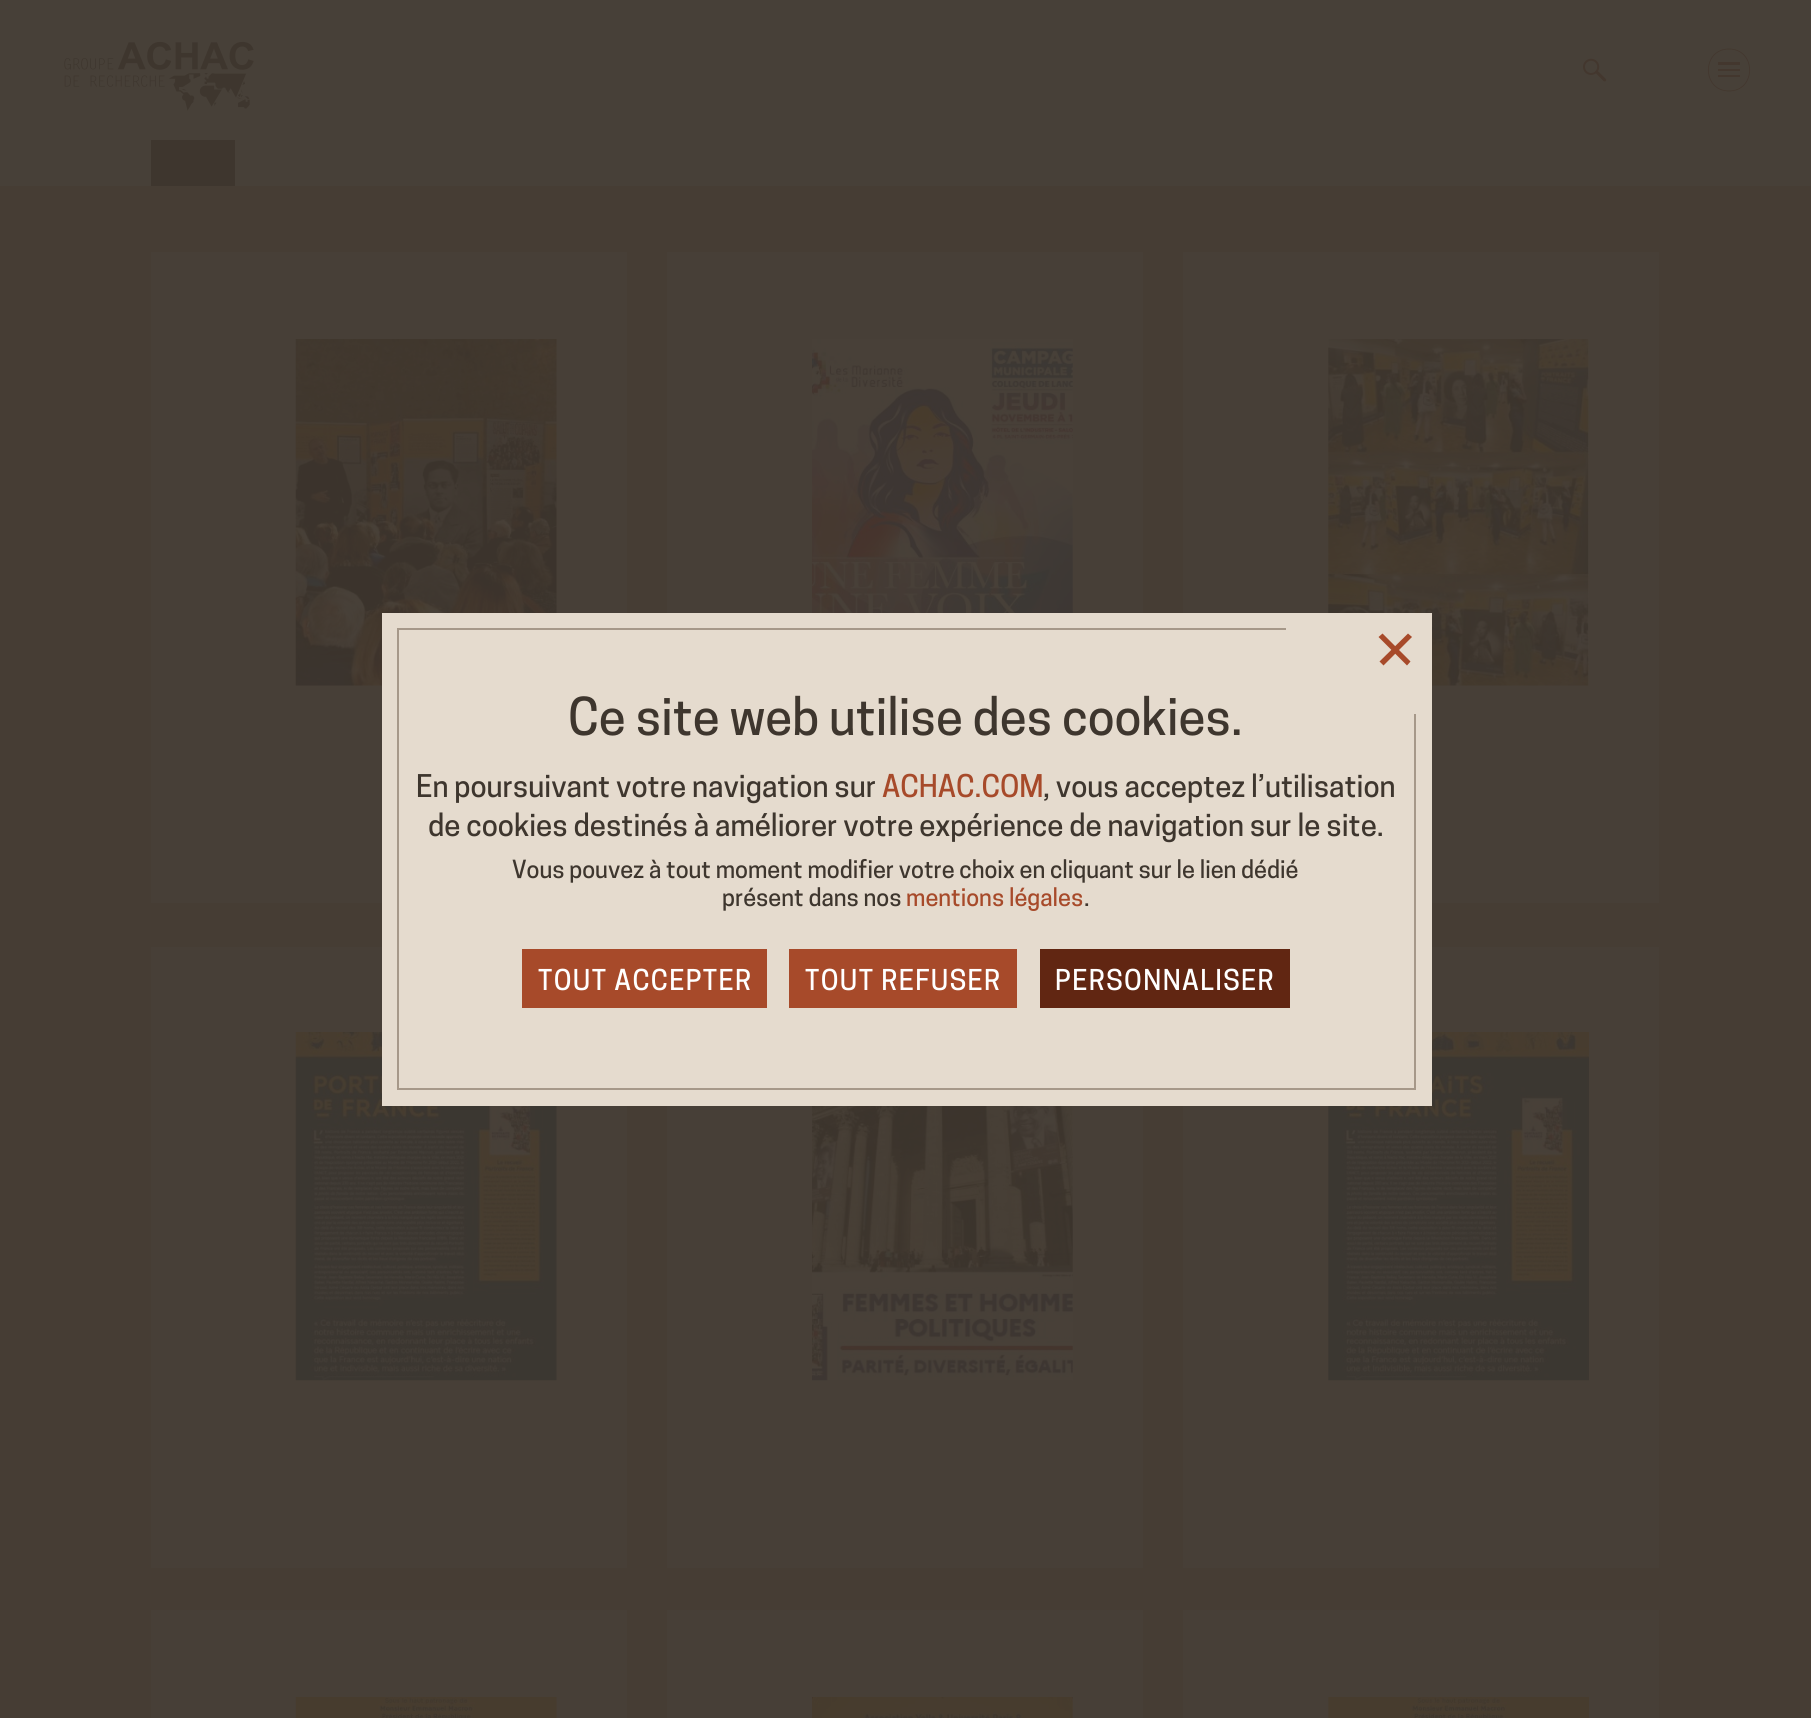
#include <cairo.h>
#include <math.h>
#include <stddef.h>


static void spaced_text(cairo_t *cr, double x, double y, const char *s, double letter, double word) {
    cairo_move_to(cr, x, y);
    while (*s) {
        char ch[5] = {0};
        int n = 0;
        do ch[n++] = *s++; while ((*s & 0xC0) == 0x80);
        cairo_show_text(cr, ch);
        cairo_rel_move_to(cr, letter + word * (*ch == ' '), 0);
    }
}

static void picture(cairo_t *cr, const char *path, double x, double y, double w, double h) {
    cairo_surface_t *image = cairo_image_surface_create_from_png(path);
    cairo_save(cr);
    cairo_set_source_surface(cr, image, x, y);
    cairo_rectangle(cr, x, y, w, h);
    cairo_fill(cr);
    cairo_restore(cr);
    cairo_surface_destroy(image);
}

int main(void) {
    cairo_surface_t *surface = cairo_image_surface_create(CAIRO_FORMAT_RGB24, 1811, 1718);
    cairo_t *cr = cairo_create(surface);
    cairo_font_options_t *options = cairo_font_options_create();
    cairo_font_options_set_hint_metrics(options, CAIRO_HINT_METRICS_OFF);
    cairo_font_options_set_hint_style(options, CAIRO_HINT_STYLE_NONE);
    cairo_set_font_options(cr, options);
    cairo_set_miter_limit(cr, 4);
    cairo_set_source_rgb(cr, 0.278, 0.251, 0.22);
    cairo_paint(cr);
    picture(cr, "img1.png", 64, 41, 190, 70);
    picture(cr, "img2.png", 1583, 58, 24, 24);
    cairo_new_path(cr);
    cairo_move_to(cr, 1729, 91);
    cairo_curve_to(cr, 1756.5, 91, 1756.5, 49, 1729, 49);
    cairo_curve_to(cr, 1701.5, 49, 1701.5, 91, 1729, 91);
    cairo_close_path(cr);
    cairo_set_source_rgb(cr, 0.263, 0.216, 0.18);
    cairo_set_line_width(cr, 0.8);
    cairo_stroke(cr);
    cairo_rectangle(cr, 1718, 62, 22, 3);
    cairo_fill(cr);
    cairo_rectangle(cr, 1718, 69, 22, 2);
    cairo_fill(cr);
    cairo_rectangle(cr, 1718, 75, 22, 2);
    cairo_fill(cr);
    cairo_set_source_rgb(cr, 0.243, 0.212, 0.18);
    cairo_rectangle(cr, 151, 140, 84, 46);
    cairo_fill(cr);
    cairo_set_source_rgb(cr, 0.275, 0.239, 0.204);
    cairo_rectangle(cr, 0, 186, 1811, 1532);
    cairo_fill(cr);
    cairo_set_source_rgb(cr, 0.278, 0.247, 0.216);
    cairo_rectangle(cr, 151, 252, 476, 651);
    cairo_fill(cr);
    picture(cr, "img3.png", 295, 339, 262, 347);
    cairo_rectangle(cr, 667, 252, 476, 361);
    cairo_fill(cr);
    picture(cr, "img4.png", 812, 339, 261, 274);
    cairo_rectangle(cr, 1183, 252, 476, 651);
    cairo_fill(cr);
    picture(cr, "img5.png", 1328, 339, 261, 347);
    cairo_rectangle(cr, 151, 947, 476, 621);
    cairo_fill(cr);
    picture(cr, "img6.png", 295, 1032, 262, 349);
    cairo_rectangle(cr, 667, 1106, 476, 462);
    cairo_fill(cr);
    picture(cr, "img7.png", 812, 1106, 261, 275);
    cairo_rectangle(cr, 1183, 947, 476, 621);
    cairo_fill(cr);
    picture(cr, "img8.png", 1328, 1032, 261, 349);
    cairo_rectangle(cr, 151, 1610, 476, 108);
    cairo_fill(cr);
    picture(cr, "img9.png", 295, 1697, 262, 21);
    cairo_rectangle(cr, 667, 1610, 476, 108);
    cairo_fill(cr);
    picture(cr, "img10.png", 812, 1697, 261, 21);
    cairo_rectangle(cr, 1183, 1610, 476, 108);
    cairo_fill(cr);
    picture(cr, "img11.png", 1328, 1697, 261, 21);
    cairo_set_source_rgb(cr, 0.898, 0.859, 0.808);
    cairo_rectangle(cr, 382, 613, 1050, 493);
    cairo_fill(cr);
    cairo_rectangle(cr, 398, 629, 1017, 460);
    cairo_set_source_rgb(cr, 0.651, 0.596, 0.537);
    cairo_set_line_width(cr, 2);
    cairo_stroke(cr);
    cairo_set_source_rgb(cr, 0.898, 0.859, 0.808);
    cairo_rectangle(cr, 1286, 628, 130, 86);
    cairo_fill(cr);
    cairo_set_source_rgb(cr, 0.655, 0.29, 0.165);
    cairo_new_path(cr);
    cairo_move_to(cr, 1382.5, 633.5);
    cairo_line_to(cr, 1410.5, 661.5);
    cairo_line_to(cr, 1407, 665.5);
    cairo_line_to(cr, 1378.5, 637);
    cairo_close_path(cr);
    cairo_fill(cr);
    cairo_new_path(cr);
    cairo_move_to(cr, 1379.5, 661.5);
    cairo_line_to(cr, 1408, 633.5);
    cairo_line_to(cr, 1412, 637);
    cairo_line_to(cr, 1383.5, 665.5);
    cairo_close_path(cr);
    cairo_fill(cr);
    cairo_select_font_face(cr, "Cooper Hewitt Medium", CAIRO_FONT_SLANT_NORMAL, CAIRO_FONT_WEIGHT_NORMAL);
    cairo_set_font_size(cr, 49);
    cairo_set_source_rgb(cr, 0.243, 0.212, 0.18);
    cairo_move_to(cr, 568, 735);
    cairo_show_text(cr, "Ce site web utilise des cookies.");
    cairo_set_font_size(cr, 29.4);
    cairo_move_to(cr, 416, 797);
    cairo_show_text(cr, "En poursuivant votre navigation sur");
    cairo_set_source_rgb(cr, 0.655, 0.29, 0.165);
    cairo_move_to(cr, 882, 797);
    cairo_show_text(cr, "ACHAC.COM");
    cairo_set_source_rgb(cr, 0.243, 0.212, 0.18);
    cairo_move_to(cr, 1043, 797);
    cairo_show_text(cr, ", vous acceptez l’utilisation");
    cairo_move_to(cr, 428, 836);
    cairo_show_text(cr, "de cookies destinés à améliorer votre expérience de navigation sur le site.");
    cairo_set_font_size(cr, 23.5);
    cairo_move_to(cr, 512, 878);
    cairo_show_text(cr, "Vous pouvez à tout moment modifier votre choix en cliquant sur le lien dédié");
    cairo_move_to(cr, 722, 906);
    cairo_show_text(cr, "présent dans nos");
    cairo_set_source_rgb(cr, 0.655, 0.29, 0.165);
    cairo_move_to(cr, 906, 906);
    cairo_show_text(cr, "mentions légales");
    cairo_set_source_rgb(cr, 0.243, 0.212, 0.18);
    cairo_move_to(cr, 1084, 906);
    cairo_show_text(cr, ".");
    cairo_set_source_rgb(cr, 0.655, 0.29, 0.165);
    cairo_rectangle(cr, 522, 949, 245, 59);
    cairo_fill(cr);
    cairo_set_font_size(cr, 27);
    cairo_set_source_rgb(cr, 1, 1, 1);
    spaced_text(cr, 538, 990, "TOUT ACCEPTER", 1.4, 0);
    cairo_set_source_rgb(cr, 0.655, 0.29, 0.165);
    cairo_rectangle(cr, 789, 949, 228, 59);
    cairo_fill(cr);
    cairo_set_source_rgb(cr, 1, 1, 1);
    spaced_text(cr, 805, 990, "TOUT REFUSER", 1.4, 0);
    cairo_set_source_rgb(cr, 0.38, 0.149, 0.071);
    cairo_rectangle(cr, 1040, 949, 250, 59);
    cairo_fill(cr);
    cairo_set_source_rgb(cr, 1, 1, 1);
    spaced_text(cr, 1055, 990, "PERSONNALISER", 1.4, 0);
    cairo_surface_write_to_png(surface, "page.png");
    cairo_font_options_destroy(options);
    cairo_destroy(cr);
    cairo_surface_destroy(surface);
    return 0;
}
